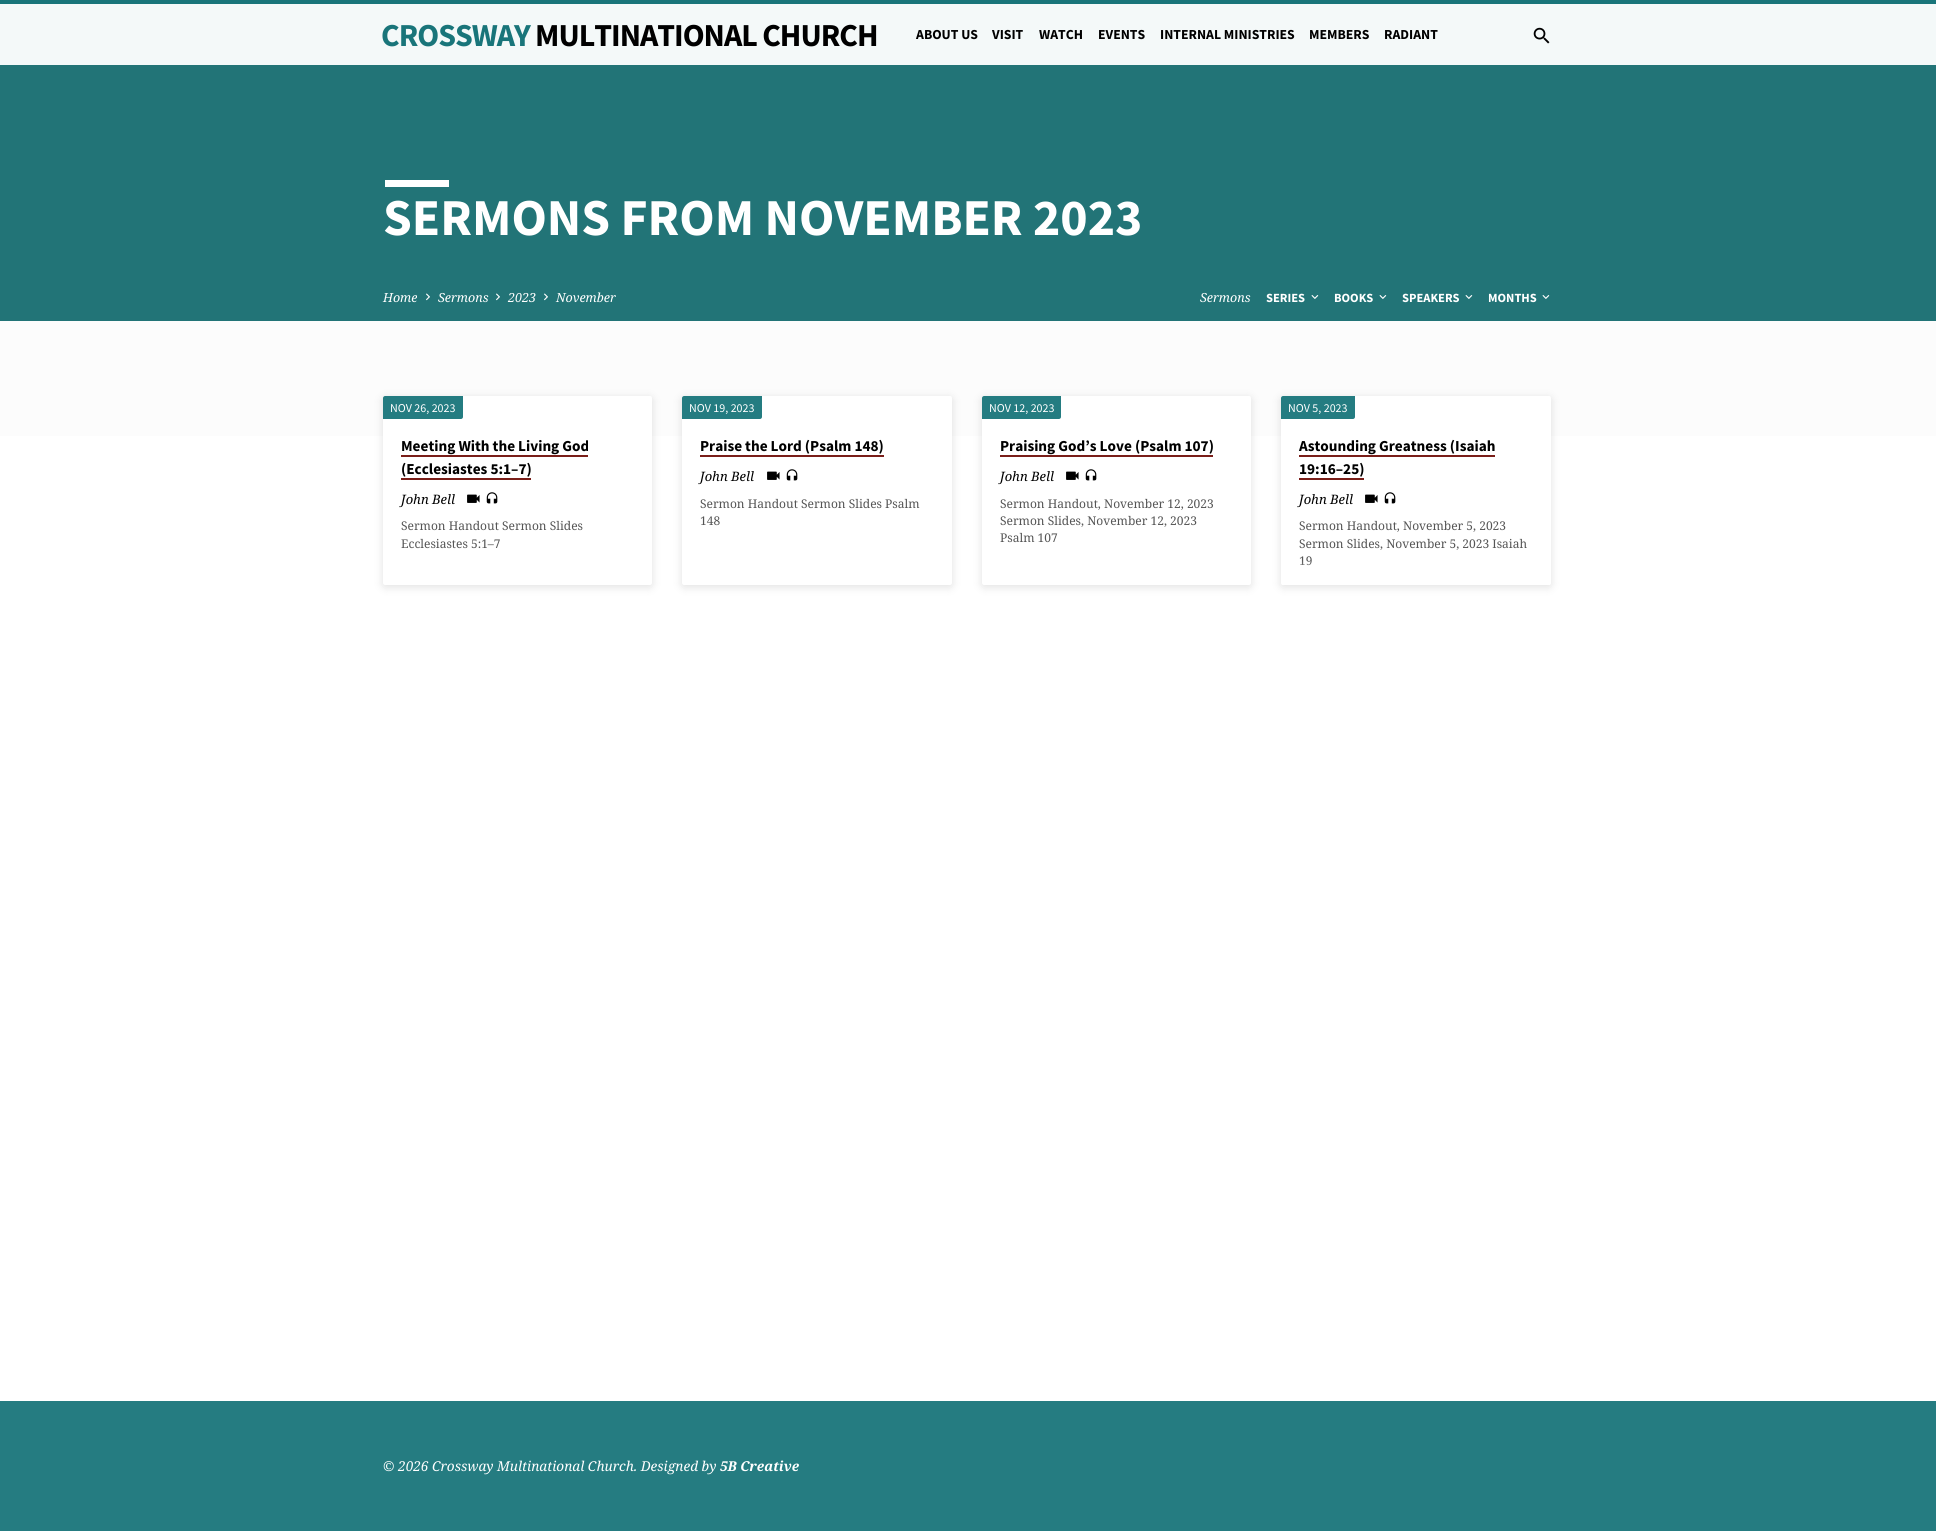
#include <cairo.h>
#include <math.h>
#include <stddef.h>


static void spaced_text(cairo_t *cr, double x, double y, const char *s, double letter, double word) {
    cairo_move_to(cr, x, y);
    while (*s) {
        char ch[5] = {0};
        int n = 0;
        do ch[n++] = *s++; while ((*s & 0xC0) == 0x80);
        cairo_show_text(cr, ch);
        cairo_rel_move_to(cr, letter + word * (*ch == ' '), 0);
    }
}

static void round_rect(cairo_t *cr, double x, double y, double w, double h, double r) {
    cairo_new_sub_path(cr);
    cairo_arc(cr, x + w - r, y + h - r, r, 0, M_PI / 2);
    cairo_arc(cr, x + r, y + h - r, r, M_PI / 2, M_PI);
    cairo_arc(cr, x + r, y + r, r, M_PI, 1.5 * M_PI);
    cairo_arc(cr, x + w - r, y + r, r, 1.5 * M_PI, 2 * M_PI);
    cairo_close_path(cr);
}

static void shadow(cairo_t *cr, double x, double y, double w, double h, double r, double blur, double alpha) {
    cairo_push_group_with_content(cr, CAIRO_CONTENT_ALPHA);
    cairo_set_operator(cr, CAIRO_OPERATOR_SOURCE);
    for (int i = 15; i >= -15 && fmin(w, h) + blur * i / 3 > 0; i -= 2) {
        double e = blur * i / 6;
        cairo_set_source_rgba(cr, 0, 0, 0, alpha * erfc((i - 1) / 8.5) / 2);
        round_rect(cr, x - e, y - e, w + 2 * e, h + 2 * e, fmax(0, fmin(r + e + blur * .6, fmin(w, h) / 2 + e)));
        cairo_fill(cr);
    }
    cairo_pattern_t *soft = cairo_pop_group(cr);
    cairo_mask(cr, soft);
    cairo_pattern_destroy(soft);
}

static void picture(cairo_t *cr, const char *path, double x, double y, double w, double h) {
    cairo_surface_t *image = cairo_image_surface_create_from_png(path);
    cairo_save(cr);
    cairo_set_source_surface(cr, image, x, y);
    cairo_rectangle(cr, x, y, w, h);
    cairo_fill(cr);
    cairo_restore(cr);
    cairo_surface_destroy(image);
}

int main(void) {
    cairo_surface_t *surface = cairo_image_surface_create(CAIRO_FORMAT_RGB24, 1936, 1531);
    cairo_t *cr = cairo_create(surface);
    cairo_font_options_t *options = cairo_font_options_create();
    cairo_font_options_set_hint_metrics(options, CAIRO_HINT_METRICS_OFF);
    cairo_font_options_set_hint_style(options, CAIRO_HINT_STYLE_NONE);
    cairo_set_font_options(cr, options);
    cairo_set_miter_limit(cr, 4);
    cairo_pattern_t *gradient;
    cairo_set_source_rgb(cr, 1, 1, 1);
    cairo_paint(cr);
    cairo_set_source_rgb(cr, 0.098, 0.459, 0.478);
    cairo_rectangle(cr, 0, 0, 1936, 4);
    cairo_fill(cr);
    cairo_set_source_rgb(cr, 0.957, 0.973, 0.973);
    cairo_rectangle(cr, 0, 4, 1936, 61);
    cairo_fill(cr);
    cairo_select_font_face(cr, "Source Sans Pro", CAIRO_FONT_SLANT_NORMAL, CAIRO_FONT_WEIGHT_BOLD);
    cairo_set_font_size(cr, 32);
    cairo_set_source_rgb(cr, 0.098, 0.459, 0.478);
    spaced_text(cr, 381, 46, "CROSSWAY", -1, 0);
    cairo_set_source_rgb(cr, 0, 0, 0);
    spaced_text(cr, 535, 46, "MULTINATIONAL CHURCH", -1, 0);
    cairo_set_font_size(cr, 13.75);
    cairo_move_to(cr, 916, 39);
    cairo_show_text(cr, "ABOUT US");
    cairo_move_to(cr, 992, 39);
    cairo_show_text(cr, "VISIT");
    cairo_move_to(cr, 1039, 39);
    cairo_show_text(cr, "WATCH");
    cairo_move_to(cr, 1098, 39);
    cairo_show_text(cr, "EVENTS");
    cairo_move_to(cr, 1160, 39);
    cairo_show_text(cr, "INTERNAL MINISTRIES");
    cairo_move_to(cr, 1309, 39);
    cairo_show_text(cr, "MEMBERS");
    cairo_move_to(cr, 1384, 39);
    cairo_show_text(cr, "RADIANT");
    picture(cr, "img1.png", 1533, 27, 17, 17);
    cairo_set_source_rgb(cr, 0.133, 0.455, 0.467);
    cairo_rectangle(cr, 0, 65, 1936, 256);
    cairo_fill(cr);
    cairo_set_source_rgb(cr, 1, 1, 1);
    cairo_rectangle(cr, 385, 180, 64, 7);
    cairo_fill(cr);
    cairo_set_font_size(cr, 51.8);
    cairo_move_to(cr, 383, 235);
    cairo_show_text(cr, "SERMONS FROM NOVEMBER 2023");
    cairo_select_font_face(cr, "Noto Serif", CAIRO_FONT_SLANT_ITALIC, CAIRO_FONT_WEIGHT_NORMAL);
    cairo_set_font_size(cr, 12.5);
    cairo_move_to(cr, 383, 302);
    cairo_show_text(cr, "Home");
    picture(cr, "img2.png", 426, 293, 4, 8);
    cairo_move_to(cr, 438, 302);
    cairo_show_text(cr, "Sermons");
    picture(cr, "img2.png", 496, 293, 4, 8);
    cairo_move_to(cr, 508, 302);
    cairo_show_text(cr, "2023");
    picture(cr, "img2.png", 544, 293, 4, 8);
    cairo_move_to(cr, 556, 302);
    cairo_show_text(cr, "November");
    cairo_move_to(cr, 1200, 302);
    cairo_show_text(cr, "Sermons");
    cairo_select_font_face(cr, "Source Sans Pro", CAIRO_FONT_SLANT_NORMAL, CAIRO_FONT_WEIGHT_BOLD);
    cairo_move_to(cr, 1266, 302);
    cairo_show_text(cr, "SERIES");
    picture(cr, "img3.png", 1311, 295, 8, 4);
    cairo_move_to(cr, 1334, 302);
    cairo_show_text(cr, "BOOKS");
    picture(cr, "img3.png", 1379, 295, 8, 4);
    cairo_move_to(cr, 1402, 302);
    cairo_show_text(cr, "SPEAKERS");
    picture(cr, "img3.png", 1465, 295, 8, 4);
    cairo_move_to(cr, 1488, 302);
    cairo_show_text(cr, "MONTHS");
    picture(cr, "img3.png", 1542, 295, 8, 4);
    gradient = cairo_pattern_create_linear(968, 321, 968, 1401);
    cairo_pattern_add_color_stop_rgba(gradient, 0.09, 0.988, 0.988, 0.988, 1);
    cairo_pattern_add_color_stop_rgba(gradient, 0.19, 1, 1, 1, 1);
    cairo_set_source(cr, gradient);
    cairo_pattern_destroy(gradient);
    cairo_rectangle(cr, 0, 321, 1936, 115);
    cairo_fill(cr);
    cairo_set_source_rgb(cr, 0, 0, 0);
    shadow(cr, 383, 398, 269, 189, 2, 5, 0.12);
    cairo_set_source_rgb(cr, 1, 1, 1);
    round_rect(cr, 383, 396, 269, 189, 2);
    cairo_fill(cr);
    cairo_set_source_rgb(cr, 0.141, 0.486, 0.506);
    cairo_new_path(cr);
    cairo_move_to(cr, 385, 396);
    cairo_line_to(cr, 463, 396);
    cairo_line_to(cr, 463, 417);
    cairo_curve_to(cr, 463, 418, 462, 419, 461, 419);
    cairo_line_to(cr, 383, 419);
    cairo_line_to(cr, 383, 398);
    cairo_curve_to(cr, 383, 397, 384, 396, 385, 396);
    cairo_close_path(cr);
    cairo_fill(cr);
    cairo_select_font_face(cr, "Source Sans Pro", CAIRO_FONT_SLANT_NORMAL, CAIRO_FONT_WEIGHT_NORMAL);
    cairo_set_font_size(cr, 12);
    cairo_set_source_rgb(cr, 1, 1, 1);
    cairo_move_to(cr, 390, 412);
    cairo_show_text(cr, "NOV 26, 2023");
    cairo_select_font_face(cr, "Source Sans Pro", CAIRO_FONT_SLANT_NORMAL, CAIRO_FONT_WEIGHT_BOLD);
    cairo_set_font_size(cr, 15.25);
    cairo_set_source_rgb(cr, 0, 0, 0);
    cairo_move_to(cr, 401, 451);
    cairo_show_text(cr, "Meeting With the Living God");
    cairo_set_source_rgb(cr, 0.478, 0.118, 0.098);
    cairo_rectangle(cr, 401, 455, 187, 2);
    cairo_fill(cr);
    cairo_set_source_rgb(cr, 0, 0, 0);
    cairo_move_to(cr, 401, 474);
    cairo_show_text(cr, "(Ecclesiastes 5:1–7)");
    cairo_set_source_rgb(cr, 0.478, 0.118, 0.098);
    cairo_rectangle(cr, 401, 478, 130, 2);
    cairo_fill(cr);
    cairo_select_font_face(cr, "Noto Serif", CAIRO_FONT_SLANT_ITALIC, CAIRO_FONT_WEIGHT_NORMAL);
    cairo_set_font_size(cr, 13);
    cairo_set_source_rgb(cr, 0, 0, 0);
    cairo_move_to(cr, 401, 504);
    cairo_show_text(cr, "John Bell");
    picture(cr, "img4.png", 467, 494, 13, 9);
    picture(cr, "img5.png", 486, 492, 12, 12);
    cairo_select_font_face(cr, "Noto Serif", CAIRO_FONT_SLANT_NORMAL, CAIRO_FONT_WEIGHT_NORMAL);
    cairo_set_font_size(cr, 12);
    cairo_set_source_rgb(cr, 0.333, 0.333, 0.333);
    cairo_move_to(cr, 401, 530);
    cairo_show_text(cr, "Sermon Handout Sermon Slides");
    cairo_move_to(cr, 401, 548);
    cairo_show_text(cr, "Ecclesiastes 5:1–7");
    cairo_set_source_rgb(cr, 0, 0, 0);
    shadow(cr, 682, 398, 270, 189, 2, 5, 0.12);
    cairo_set_source_rgb(cr, 1, 1, 1);
    round_rect(cr, 682, 396, 270, 189, 2);
    cairo_fill(cr);
    cairo_set_source_rgb(cr, 0.141, 0.486, 0.506);
    cairo_new_path(cr);
    cairo_move_to(cr, 684, 396);
    cairo_line_to(cr, 762, 396);
    cairo_line_to(cr, 762, 417);
    cairo_curve_to(cr, 762, 418, 761, 419, 760, 419);
    cairo_line_to(cr, 682, 419);
    cairo_line_to(cr, 682, 398);
    cairo_curve_to(cr, 682, 397, 683, 396, 684, 396);
    cairo_close_path(cr);
    cairo_fill(cr);
    cairo_select_font_face(cr, "Source Sans Pro", CAIRO_FONT_SLANT_NORMAL, CAIRO_FONT_WEIGHT_NORMAL);
    cairo_set_source_rgb(cr, 1, 1, 1);
    cairo_move_to(cr, 689, 412);
    cairo_show_text(cr, "NOV 19, 2023");
    cairo_select_font_face(cr, "Source Sans Pro", CAIRO_FONT_SLANT_NORMAL, CAIRO_FONT_WEIGHT_BOLD);
    cairo_set_font_size(cr, 15.25);
    cairo_set_source_rgb(cr, 0, 0, 0);
    cairo_move_to(cr, 700, 451);
    cairo_show_text(cr, "Praise the Lord (Psalm 148)");
    cairo_set_source_rgb(cr, 0.478, 0.118, 0.098);
    cairo_rectangle(cr, 700, 455, 184, 2);
    cairo_fill(cr);
    cairo_select_font_face(cr, "Noto Serif", CAIRO_FONT_SLANT_ITALIC, CAIRO_FONT_WEIGHT_NORMAL);
    cairo_set_font_size(cr, 13);
    cairo_set_source_rgb(cr, 0, 0, 0);
    cairo_move_to(cr, 700, 481);
    cairo_show_text(cr, "John Bell");
    picture(cr, "img4.png", 767, 471, 13, 9);
    picture(cr, "img5.png", 786, 469, 12, 12);
    cairo_select_font_face(cr, "Noto Serif", CAIRO_FONT_SLANT_NORMAL, CAIRO_FONT_WEIGHT_NORMAL);
    cairo_set_font_size(cr, 12);
    cairo_set_source_rgb(cr, 0.333, 0.333, 0.333);
    cairo_move_to(cr, 700, 508);
    cairo_show_text(cr, "Sermon Handout Sermon Slides Psalm");
    cairo_move_to(cr, 700, 525);
    cairo_show_text(cr, "148");
    cairo_set_source_rgb(cr, 0, 0, 0);
    shadow(cr, 982, 398, 269, 189, 2, 5, 0.12);
    cairo_set_source_rgb(cr, 1, 1, 1);
    round_rect(cr, 982, 396, 269, 189, 2);
    cairo_fill(cr);
    cairo_set_source_rgb(cr, 0.141, 0.486, 0.506);
    cairo_new_path(cr);
    cairo_move_to(cr, 984, 396);
    cairo_line_to(cr, 1061, 396);
    cairo_line_to(cr, 1061, 417);
    cairo_curve_to(cr, 1061, 418, 1060, 419, 1059, 419);
    cairo_line_to(cr, 982, 419);
    cairo_line_to(cr, 982, 398);
    cairo_curve_to(cr, 982, 397, 983, 396, 984, 396);
    cairo_close_path(cr);
    cairo_fill(cr);
    cairo_select_font_face(cr, "Source Sans Pro", CAIRO_FONT_SLANT_NORMAL, CAIRO_FONT_WEIGHT_NORMAL);
    cairo_set_source_rgb(cr, 1, 1, 1);
    cairo_move_to(cr, 989, 412);
    cairo_show_text(cr, "NOV 12, 2023");
    cairo_select_font_face(cr, "Source Sans Pro", CAIRO_FONT_SLANT_NORMAL, CAIRO_FONT_WEIGHT_BOLD);
    cairo_set_font_size(cr, 15.25);
    cairo_set_source_rgb(cr, 0, 0, 0);
    cairo_move_to(cr, 1000, 451);
    cairo_show_text(cr, "Praising God’s Love (Psalm 107)");
    cairo_set_source_rgb(cr, 0.478, 0.118, 0.098);
    cairo_rectangle(cr, 1000, 455, 213, 2);
    cairo_fill(cr);
    cairo_select_font_face(cr, "Noto Serif", CAIRO_FONT_SLANT_ITALIC, CAIRO_FONT_WEIGHT_NORMAL);
    cairo_set_font_size(cr, 13);
    cairo_set_source_rgb(cr, 0, 0, 0);
    cairo_move_to(cr, 1000, 481);
    cairo_show_text(cr, "John Bell");
    picture(cr, "img4.png", 1066, 471, 13, 9);
    picture(cr, "img5.png", 1085, 469, 12, 12);
    cairo_select_font_face(cr, "Noto Serif", CAIRO_FONT_SLANT_NORMAL, CAIRO_FONT_WEIGHT_NORMAL);
    cairo_set_font_size(cr, 12);
    cairo_set_source_rgb(cr, 0.333, 0.333, 0.333);
    cairo_move_to(cr, 1000, 508);
    cairo_show_text(cr, "Sermon Handout, November 12, 2023");
    cairo_move_to(cr, 1000, 525);
    cairo_show_text(cr, "Sermon Slides, November 12, 2023");
    cairo_move_to(cr, 1000, 542);
    cairo_show_text(cr, "Psalm 107");
    cairo_set_source_rgb(cr, 0, 0, 0);
    shadow(cr, 1281, 398, 270, 189, 2, 5, 0.12);
    cairo_set_source_rgb(cr, 1, 1, 1);
    round_rect(cr, 1281, 396, 270, 189, 2);
    cairo_fill(cr);
    cairo_set_source_rgb(cr, 0.141, 0.486, 0.506);
    cairo_new_path(cr);
    cairo_move_to(cr, 1283, 396);
    cairo_line_to(cr, 1355, 396);
    cairo_line_to(cr, 1355, 417);
    cairo_curve_to(cr, 1355, 418, 1354, 419, 1353, 419);
    cairo_line_to(cr, 1281, 419);
    cairo_line_to(cr, 1281, 398);
    cairo_curve_to(cr, 1281, 397, 1282, 396, 1283, 396);
    cairo_close_path(cr);
    cairo_fill(cr);
    cairo_select_font_face(cr, "Source Sans Pro", CAIRO_FONT_SLANT_NORMAL, CAIRO_FONT_WEIGHT_NORMAL);
    cairo_set_source_rgb(cr, 1, 1, 1);
    cairo_move_to(cr, 1288, 412);
    cairo_show_text(cr, "NOV 5, 2023");
    cairo_select_font_face(cr, "Source Sans Pro", CAIRO_FONT_SLANT_NORMAL, CAIRO_FONT_WEIGHT_BOLD);
    cairo_set_font_size(cr, 15.25);
    cairo_set_source_rgb(cr, 0, 0, 0);
    cairo_move_to(cr, 1299, 451);
    cairo_show_text(cr, "Astounding Greatness (Isaiah");
    cairo_set_source_rgb(cr, 0.478, 0.118, 0.098);
    cairo_rectangle(cr, 1299, 455, 196, 2);
    cairo_fill(cr);
    cairo_set_source_rgb(cr, 0, 0, 0);
    cairo_move_to(cr, 1299, 474);
    cairo_show_text(cr, "19:16–25)");
    cairo_set_source_rgb(cr, 0.478, 0.118, 0.098);
    cairo_rectangle(cr, 1299, 478, 65, 2);
    cairo_fill(cr);
    cairo_select_font_face(cr, "Noto Serif", CAIRO_FONT_SLANT_ITALIC, CAIRO_FONT_WEIGHT_NORMAL);
    cairo_set_font_size(cr, 13);
    cairo_set_source_rgb(cr, 0, 0, 0);
    cairo_move_to(cr, 1299, 504);
    cairo_show_text(cr, "John Bell");
    picture(cr, "img4.png", 1365, 494, 13, 9);
    picture(cr, "img5.png", 1384, 492, 12, 12);
    cairo_select_font_face(cr, "Noto Serif", CAIRO_FONT_SLANT_NORMAL, CAIRO_FONT_WEIGHT_NORMAL);
    cairo_set_font_size(cr, 12);
    cairo_set_source_rgb(cr, 0.333, 0.333, 0.333);
    cairo_move_to(cr, 1299, 530);
    cairo_show_text(cr, "Sermon Handout, November 5, 2023");
    cairo_move_to(cr, 1299, 548);
    cairo_show_text(cr, "Sermon Slides, November 5, 2023 Isaiah");
    cairo_move_to(cr, 1299, 565);
    cairo_show_text(cr, "19");
    gradient = cairo_pattern_create_linear(1416, 560, 1416, 585);
    cairo_pattern_add_color_stop_rgba(gradient, 0, 1, 1, 1, 0);
    cairo_pattern_add_color_stop_rgba(gradient, 1, 1, 1, 1, 0.9);
    cairo_set_source(cr, gradient);
    cairo_pattern_destroy(gradient);
    cairo_new_path(cr);
    cairo_move_to(cr, 1281, 560);
    cairo_line_to(cr, 1551, 560);
    cairo_line_to(cr, 1551, 583);
    cairo_curve_to(cr, 1551, 584, 1550, 585, 1549, 585);
    cairo_line_to(cr, 1283, 585);
    cairo_curve_to(cr, 1282, 585, 1281, 584, 1281, 583);
    cairo_close_path(cr);
    cairo_fill(cr);
    cairo_set_source_rgb(cr, 0.145, 0.486, 0.506);
    cairo_rectangle(cr, 0, 1401, 1936, 130);
    cairo_fill(cr);
    cairo_select_font_face(cr, "Noto Serif", CAIRO_FONT_SLANT_ITALIC, CAIRO_FONT_WEIGHT_NORMAL);
    cairo_set_font_size(cr, 13.6);
    cairo_set_source_rgb(cr, 1, 1, 1);
    cairo_move_to(cr, 383, 1471);
    cairo_show_text(cr, "© 2026 Crossway Multinational Church. Designed by");
    cairo_select_font_face(cr, "Noto Serif", CAIRO_FONT_SLANT_ITALIC, CAIRO_FONT_WEIGHT_BOLD);
    cairo_move_to(cr, 720, 1471);
    cairo_show_text(cr, "5B Creative");
    cairo_surface_write_to_png(surface, "page.png");
    cairo_font_options_destroy(options);
    cairo_destroy(cr);
    cairo_surface_destroy(surface);
    return 0;
}
